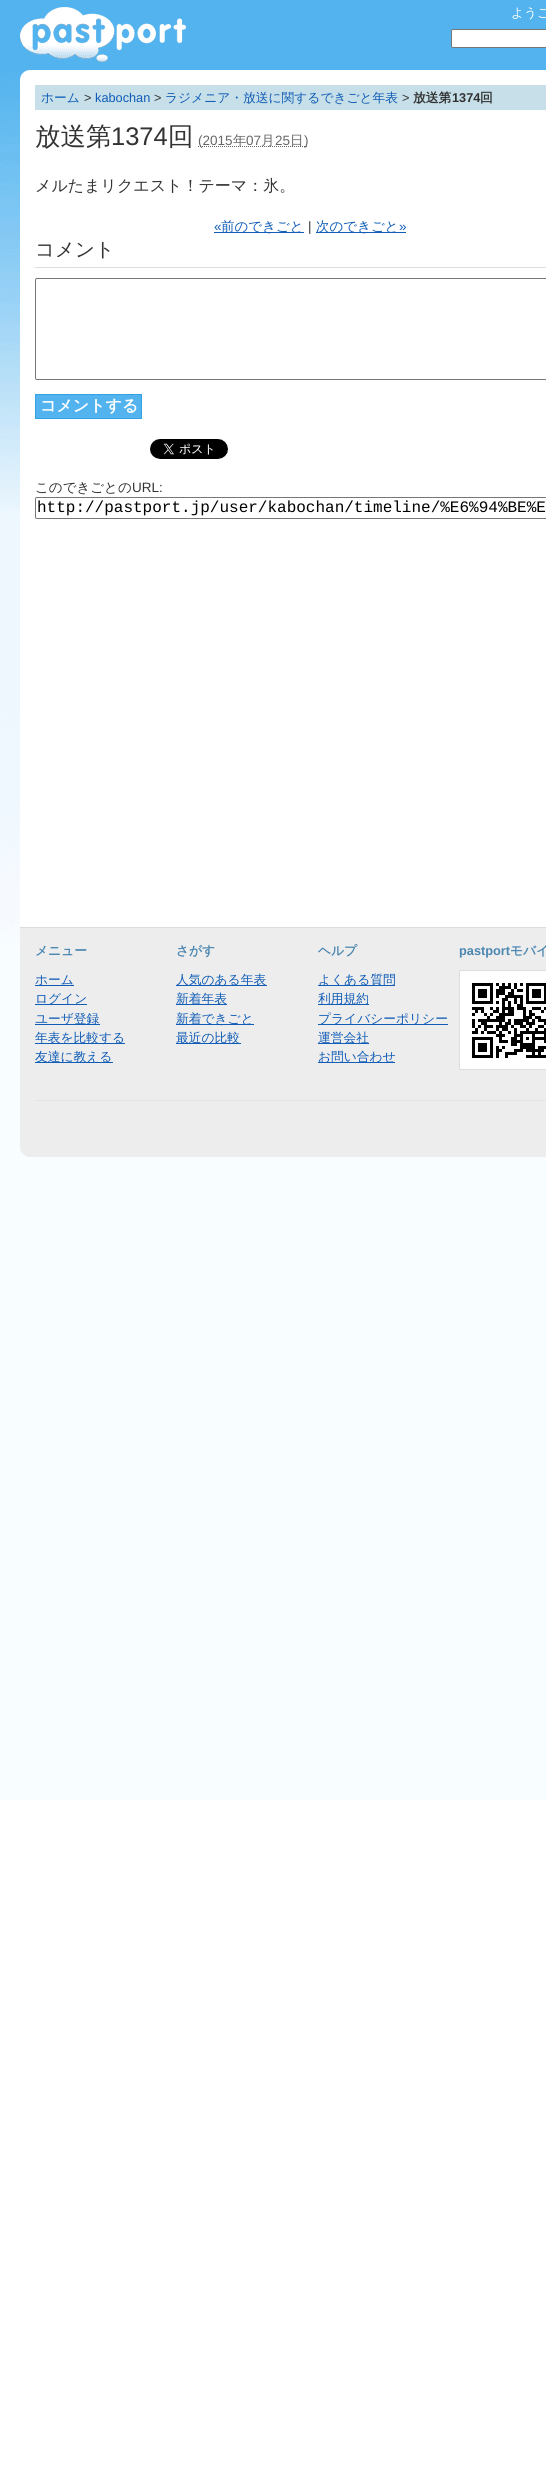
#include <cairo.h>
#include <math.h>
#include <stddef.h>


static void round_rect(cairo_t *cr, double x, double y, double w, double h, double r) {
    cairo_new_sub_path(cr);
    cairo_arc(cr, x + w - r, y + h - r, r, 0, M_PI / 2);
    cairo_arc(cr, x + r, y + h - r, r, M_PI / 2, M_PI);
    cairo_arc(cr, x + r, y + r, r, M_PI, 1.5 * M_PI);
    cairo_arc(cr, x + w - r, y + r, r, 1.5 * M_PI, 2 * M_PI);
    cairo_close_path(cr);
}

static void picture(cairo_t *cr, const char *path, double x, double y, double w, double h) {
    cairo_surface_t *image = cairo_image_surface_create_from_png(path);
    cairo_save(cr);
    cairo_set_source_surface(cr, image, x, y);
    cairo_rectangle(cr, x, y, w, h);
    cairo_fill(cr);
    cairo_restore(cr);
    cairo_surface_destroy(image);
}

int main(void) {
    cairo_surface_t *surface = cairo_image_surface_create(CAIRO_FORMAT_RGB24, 546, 2475);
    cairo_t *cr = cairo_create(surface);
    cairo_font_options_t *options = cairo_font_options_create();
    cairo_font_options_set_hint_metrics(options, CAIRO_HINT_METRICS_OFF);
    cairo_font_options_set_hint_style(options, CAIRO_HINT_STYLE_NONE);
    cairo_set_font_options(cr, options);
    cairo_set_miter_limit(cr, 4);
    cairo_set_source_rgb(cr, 1, 1, 1);
    cairo_paint(cr);
    picture(cr, "img1.png", 0, 0, 546, 1800);
    picture(cr, "img2.png", 20, 7, 166, 55);
    cairo_select_font_face(cr, "WenQuanYi Zen Hei Medium", CAIRO_FONT_SLANT_NORMAL, CAIRO_FONT_WEIGHT_NORMAL);
    cairo_set_font_size(cr, 12.75);
    cairo_set_source_rgb(cr, 1, 1, 1);
    cairo_move_to(cr, 511, 17);
    cairo_show_text(cr, "ようこ");
    round_rect(cr, 451.5, 29.5, 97, 18, 1.5);
    cairo_fill_preserve(cr);
    cairo_set_source_rgb(cr, 0.463, 0.463, 0.463);
    cairo_set_line_width(cr, 1);
    cairo_stroke(cr);
    cairo_set_source_rgb(cr, 1, 1, 1);
    cairo_new_path(cr);
    cairo_move_to(cr, 30, 70);
    cairo_line_to(cr, 546, 70);
    cairo_curve_to(cr, 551.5, 70, 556, 74.5, 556, 80);
    cairo_line_to(cr, 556, 927);
    cairo_line_to(cr, 20, 927);
    cairo_line_to(cr, 20, 80);
    cairo_curve_to(cr, 20, 74.5, 24.5, 70, 30, 70);
    cairo_close_path(cr);
    cairo_fill(cr);
    cairo_set_source_rgb(cr, 0.776, 0.875, 0.914);
    cairo_rectangle(cr, 35, 85, 511, 25);
    cairo_fill(cr);
    cairo_set_source_rgb(cr, 0.063, 0.361, 0.714);
    cairo_move_to(cr, 41, 102);
    cairo_show_text(cr, "ホーム");
    cairo_select_font_face(cr, "Liberation Sans", CAIRO_FONT_SLANT_NORMAL, CAIRO_FONT_WEIGHT_NORMAL);
    cairo_set_source_rgb(cr, 0.2, 0.2, 0.2);
    cairo_move_to(cr, 84, 102);
    cairo_show_text(cr, ">");
    cairo_set_source_rgb(cr, 0.063, 0.361, 0.714);
    cairo_move_to(cr, 95, 102);
    cairo_show_text(cr, "kabochan");
    cairo_set_source_rgb(cr, 0.2, 0.2, 0.2);
    cairo_move_to(cr, 154, 102);
    cairo_show_text(cr, ">");
    cairo_select_font_face(cr, "WenQuanYi Zen Hei Medium", CAIRO_FONT_SLANT_NORMAL, CAIRO_FONT_WEIGHT_NORMAL);
    cairo_set_source_rgb(cr, 0.063, 0.361, 0.714);
    cairo_move_to(cr, 165, 102);
    cairo_show_text(cr, "ラジメニア・放送に関するできごと年表");
    cairo_select_font_face(cr, "Liberation Sans", CAIRO_FONT_SLANT_NORMAL, CAIRO_FONT_WEIGHT_NORMAL);
    cairo_set_source_rgb(cr, 0.2, 0.2, 0.2);
    cairo_move_to(cr, 402, 102);
    cairo_show_text(cr, ">");
    cairo_select_font_face(cr, "WenQuanYi Zen Hei", CAIRO_FONT_SLANT_NORMAL, CAIRO_FONT_WEIGHT_BOLD);
    cairo_move_to(cr, 413, 102);
    cairo_show_text(cr, "放送第");
    cairo_select_font_face(cr, "Liberation Sans", CAIRO_FONT_SLANT_NORMAL, CAIRO_FONT_WEIGHT_BOLD);
    cairo_move_to(cr, 452, 102);
    cairo_show_text(cr, "1374");
    cairo_select_font_face(cr, "WenQuanYi Zen Hei", CAIRO_FONT_SLANT_NORMAL, CAIRO_FONT_WEIGHT_BOLD);
    cairo_move_to(cr, 480, 102);
    cairo_show_text(cr, "回");
    cairo_select_font_face(cr, "WenQuanYi Zen Hei Medium", CAIRO_FONT_SLANT_NORMAL, CAIRO_FONT_WEIGHT_NORMAL);
    cairo_set_font_size(cr, 25.5);
    cairo_move_to(cr, 35, 145);
    cairo_show_text(cr, "放送第");
    cairo_select_font_face(cr, "Liberation Sans", CAIRO_FONT_SLANT_NORMAL, CAIRO_FONT_WEIGHT_NORMAL);
    cairo_move_to(cr, 111, 145);
    cairo_show_text(cr, "1374");
    cairo_select_font_face(cr, "WenQuanYi Zen Hei Medium", CAIRO_FONT_SLANT_NORMAL, CAIRO_FONT_WEIGHT_NORMAL);
    cairo_move_to(cr, 168, 145);
    cairo_show_text(cr, "回");
    cairo_new_path(cr);
    cairo_move_to(cr, 198, 146.5);
    cairo_line_to(cr, 308, 146.5);
    cairo_set_source_rgb(cr, 0.4, 0.4, 0.4);
    cairo_set_dash(cr, (double[]){1, 1}, 2, 0);
    cairo_stroke(cr);
    cairo_select_font_face(cr, "Liberation Sans", CAIRO_FONT_SLANT_NORMAL, CAIRO_FONT_WEIGHT_NORMAL);
    cairo_set_font_size(cr, 13.5);
    cairo_move_to(cr, 198, 145);
    cairo_show_text(cr, "(2015");
    cairo_select_font_face(cr, "WenQuanYi Zen Hei Medium", CAIRO_FONT_SLANT_NORMAL, CAIRO_FONT_WEIGHT_NORMAL);
    cairo_move_to(cr, 233, 145);
    cairo_show_text(cr, "年");
    cairo_select_font_face(cr, "Liberation Sans", CAIRO_FONT_SLANT_NORMAL, CAIRO_FONT_WEIGHT_NORMAL);
    cairo_move_to(cr, 246, 145);
    cairo_show_text(cr, "07");
    cairo_select_font_face(cr, "WenQuanYi Zen Hei Medium", CAIRO_FONT_SLANT_NORMAL, CAIRO_FONT_WEIGHT_NORMAL);
    cairo_move_to(cr, 261, 145);
    cairo_show_text(cr, "月");
    cairo_select_font_face(cr, "Liberation Sans", CAIRO_FONT_SLANT_NORMAL, CAIRO_FONT_WEIGHT_NORMAL);
    cairo_move_to(cr, 275, 145);
    cairo_show_text(cr, "25");
    cairo_select_font_face(cr, "WenQuanYi Zen Hei Medium", CAIRO_FONT_SLANT_NORMAL, CAIRO_FONT_WEIGHT_NORMAL);
    cairo_move_to(cr, 290, 145);
    cairo_show_text(cr, "日");
    cairo_select_font_face(cr, "Liberation Sans", CAIRO_FONT_SLANT_NORMAL, CAIRO_FONT_WEIGHT_NORMAL);
    cairo_move_to(cr, 304, 145);
    cairo_show_text(cr, ")");
    cairo_select_font_face(cr, "WenQuanYi Zen Hei Medium", CAIRO_FONT_SLANT_NORMAL, CAIRO_FONT_WEIGHT_NORMAL);
    cairo_set_font_size(cr, 16);
    cairo_set_source_rgb(cr, 0.2, 0.2, 0.2);
    cairo_move_to(cr, 35, 191);
    cairo_show_text(cr, "メルたまリクエスト！テーマ：氷。");
    cairo_select_font_face(cr, "Liberation Sans", CAIRO_FONT_SLANT_NORMAL, CAIRO_FONT_WEIGHT_NORMAL);
    cairo_set_font_size(cr, 13.5);
    cairo_set_source_rgb(cr, 0.063, 0.361, 0.714);
    cairo_move_to(cr, 214, 231);
    cairo_show_text(cr, "«");
    cairo_rectangle(cr, 214, 232, 90, 1);
    cairo_fill(cr);
    cairo_select_font_face(cr, "WenQuanYi Zen Hei Medium", CAIRO_FONT_SLANT_NORMAL, CAIRO_FONT_WEIGHT_NORMAL);
    cairo_move_to(cr, 221, 231);
    cairo_show_text(cr, "前のできごと");
    cairo_select_font_face(cr, "Liberation Sans", CAIRO_FONT_SLANT_NORMAL, CAIRO_FONT_WEIGHT_NORMAL);
    cairo_set_source_rgb(cr, 0.2, 0.2, 0.2);
    cairo_move_to(cr, 308, 231);
    cairo_show_text(cr, "|");
    cairo_set_source_rgb(cr, 0.063, 0.361, 0.714);
    cairo_rectangle(cr, 316, 232, 90, 1);
    cairo_fill(cr);
    cairo_select_font_face(cr, "WenQuanYi Zen Hei Medium", CAIRO_FONT_SLANT_NORMAL, CAIRO_FONT_WEIGHT_NORMAL);
    cairo_move_to(cr, 316, 231);
    cairo_show_text(cr, "次のできごと");
    cairo_select_font_face(cr, "Liberation Sans", CAIRO_FONT_SLANT_NORMAL, CAIRO_FONT_WEIGHT_NORMAL);
    cairo_move_to(cr, 399, 231);
    cairo_show_text(cr, "»");
    cairo_set_source_rgb(cr, 0.867, 0.867, 0.867);
    cairo_rectangle(cr, 35, 267, 511, 1);
    cairo_fill(cr);
    cairo_select_font_face(cr, "WenQuanYi Zen Hei Medium", CAIRO_FONT_SLANT_NORMAL, CAIRO_FONT_WEIGHT_NORMAL);
    cairo_set_font_size(cr, 19.5);
    cairo_set_source_rgb(cr, 0.2, 0.2, 0.2);
    cairo_move_to(cr, 35, 256);
    cairo_show_text(cr, "コメント");
    round_rect(cr, 35.5, 278.5, 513, 101, 1.5);
    cairo_set_source_rgb(cr, 0.463, 0.463, 0.463);
    cairo_set_dash(cr, NULL, 0, 0);
    cairo_stroke(cr);
    cairo_set_source_rgb(cr, 0.325, 0.702, 0.937);
    cairo_rectangle(cr, 35.5, 394.5, 106, 24);
    cairo_fill_preserve(cr);
    cairo_set_source_rgb(cr, 0.208, 0.631, 0.898);
    cairo_stroke(cr);
    cairo_select_font_face(cr, "WenQuanYi Zen Hei", CAIRO_FONT_SLANT_NORMAL, CAIRO_FONT_WEIGHT_BOLD);
    cairo_set_font_size(cr, 16);
    cairo_set_source_rgb(cr, 1, 1, 1);
    cairo_move_to(cr, 40, 411);
    cairo_show_text(cr, "コメントする");
    picture(cr, "img3.png", 150, 439, 78, 20);
    cairo_select_font_face(cr, "WenQuanYi Zen Hei Medium", CAIRO_FONT_SLANT_NORMAL, CAIRO_FONT_WEIGHT_NORMAL);
    cairo_set_font_size(cr, 13.5);
    cairo_set_source_rgb(cr, 0.2, 0.2, 0.2);
    cairo_move_to(cr, 35, 492);
    cairo_show_text(cr, "このできごとの");
    cairo_select_font_face(cr, "Liberation Sans", CAIRO_FONT_SLANT_NORMAL, CAIRO_FONT_WEIGHT_NORMAL);
    cairo_move_to(cr, 132, 492);
    cairo_show_text(cr, "URL:");
    round_rect(cr, 35.5, 497.5, 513, 21, 1.5);
    cairo_set_source_rgb(cr, 0.463, 0.463, 0.463);
    cairo_stroke(cr);
    cairo_select_font_face(cr, "Liberation Mono", CAIRO_FONT_SLANT_NORMAL, CAIRO_FONT_WEIGHT_NORMAL);
    cairo_set_font_size(cr, 16);
    cairo_set_source_rgb(cr, 0, 0, 0);
    cairo_move_to(cr, 37, 512);
    cairo_show_text(cr, "http://pastport.jp/user/kabochan/timeline/%E6%94%BE%E");
    cairo_set_source_rgb(cr, 0.929, 0.929, 0.929);
    cairo_new_path(cr);
    cairo_move_to(cr, 20, 927);
    cairo_line_to(cr, 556, 927);
    cairo_line_to(cr, 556, 1147);
    cairo_curve_to(cr, 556, 1152.5, 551.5, 1157, 546, 1157);
    cairo_line_to(cr, 30, 1157);
    cairo_curve_to(cr, 24.5, 1157, 20, 1152.5, 20, 1147);
    cairo_close_path(cr);
    cairo_fill(cr);
    cairo_set_source_rgb(cr, 0.867, 0.867, 0.867);
    cairo_rectangle(cr, 20, 927, 526, 1);
    cairo_fill(cr);
    cairo_select_font_face(cr, "WenQuanYi Zen Hei", CAIRO_FONT_SLANT_NORMAL, CAIRO_FONT_WEIGHT_BOLD);
    cairo_set_font_size(cr, 12.75);
    cairo_set_source_rgb(cr, 0.294, 0.529, 0.694);
    cairo_move_to(cr, 35, 955);
    cairo_show_text(cr, "メニュー");
    cairo_set_source_rgb(cr, 0.063, 0.361, 0.714);
    cairo_rectangle(cr, 35, 985, 39, 1);
    cairo_fill(cr);
    cairo_select_font_face(cr, "WenQuanYi Zen Hei Medium", CAIRO_FONT_SLANT_NORMAL, CAIRO_FONT_WEIGHT_NORMAL);
    cairo_move_to(cr, 35, 984);
    cairo_show_text(cr, "ホーム");
    cairo_rectangle(cr, 35, 1004, 52, 1);
    cairo_fill(cr);
    cairo_move_to(cr, 35, 1003);
    cairo_show_text(cr, "ログイン");
    cairo_rectangle(cr, 35, 1024, 65, 1);
    cairo_fill(cr);
    cairo_move_to(cr, 35, 1023);
    cairo_show_text(cr, "ユーザ登録");
    cairo_rectangle(cr, 35, 1043, 90, 1);
    cairo_fill(cr);
    cairo_move_to(cr, 35, 1042);
    cairo_show_text(cr, "年表を比較する");
    cairo_rectangle(cr, 35, 1062, 78, 1);
    cairo_fill(cr);
    cairo_move_to(cr, 35, 1061);
    cairo_show_text(cr, "友達に教える");
    cairo_select_font_face(cr, "WenQuanYi Zen Hei", CAIRO_FONT_SLANT_NORMAL, CAIRO_FONT_WEIGHT_BOLD);
    cairo_set_source_rgb(cr, 0.294, 0.529, 0.694);
    cairo_move_to(cr, 176, 955);
    cairo_show_text(cr, "さがす");
    cairo_set_source_rgb(cr, 0.063, 0.361, 0.714);
    cairo_rectangle(cr, 176, 985, 91, 1);
    cairo_fill(cr);
    cairo_select_font_face(cr, "WenQuanYi Zen Hei Medium", CAIRO_FONT_SLANT_NORMAL, CAIRO_FONT_WEIGHT_NORMAL);
    cairo_move_to(cr, 176, 984);
    cairo_show_text(cr, "人気のある年表");
    cairo_rectangle(cr, 176, 1004, 51, 1);
    cairo_fill(cr);
    cairo_move_to(cr, 176, 1003);
    cairo_show_text(cr, "新着年表");
    cairo_rectangle(cr, 176, 1024, 78, 1);
    cairo_fill(cr);
    cairo_move_to(cr, 176, 1023);
    cairo_show_text(cr, "新着できごと");
    cairo_rectangle(cr, 176, 1043, 65, 1);
    cairo_fill(cr);
    cairo_move_to(cr, 176, 1042);
    cairo_show_text(cr, "最近の比較");
    cairo_select_font_face(cr, "WenQuanYi Zen Hei", CAIRO_FONT_SLANT_NORMAL, CAIRO_FONT_WEIGHT_BOLD);
    cairo_set_source_rgb(cr, 0.294, 0.529, 0.694);
    cairo_move_to(cr, 318, 955);
    cairo_show_text(cr, "ヘルプ");
    cairo_set_source_rgb(cr, 0.063, 0.361, 0.714);
    cairo_rectangle(cr, 318, 985, 77, 1);
    cairo_fill(cr);
    cairo_select_font_face(cr, "WenQuanYi Zen Hei Medium", CAIRO_FONT_SLANT_NORMAL, CAIRO_FONT_WEIGHT_NORMAL);
    cairo_move_to(cr, 318, 984);
    cairo_show_text(cr, "よくある質問");
    cairo_rectangle(cr, 318, 1004, 51, 1);
    cairo_fill(cr);
    cairo_move_to(cr, 318, 1003);
    cairo_show_text(cr, "利用規約");
    cairo_rectangle(cr, 318, 1024, 130, 1);
    cairo_fill(cr);
    cairo_move_to(cr, 318, 1023);
    cairo_show_text(cr, "プライバシーポリシー");
    cairo_rectangle(cr, 318, 1043, 51, 1);
    cairo_fill(cr);
    cairo_move_to(cr, 318, 1042);
    cairo_show_text(cr, "運営会社");
    cairo_rectangle(cr, 318, 1062, 77, 1);
    cairo_fill(cr);
    cairo_move_to(cr, 318, 1061);
    cairo_show_text(cr, "お問い合わせ");
    cairo_select_font_face(cr, "Liberation Sans", CAIRO_FONT_SLANT_NORMAL, CAIRO_FONT_WEIGHT_BOLD);
    cairo_set_source_rgb(cr, 0.294, 0.529, 0.694);
    cairo_move_to(cr, 459, 955);
    cairo_show_text(cr, "pastport");
    cairo_select_font_face(cr, "WenQuanYi Zen Hei", CAIRO_FONT_SLANT_NORMAL, CAIRO_FONT_WEIGHT_BOLD);
    cairo_move_to(cr, 510, 955);
    cairo_show_text(cr, "モバイ");
    cairo_rectangle(cr, 459.5, 970.5, 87, 99);
    cairo_set_source_rgb(cr, 0.867, 0.867, 0.867);
    cairo_stroke(cr);
    picture(cr, "img4.png", 460, 971, 86, 98);
    cairo_new_path(cr);
    cairo_move_to(cr, 35, 1100.5);
    cairo_line_to(cr, 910, 1100.5);
    cairo_set_dash(cr, (double[]){1, 1}, 2, 0);
    cairo_stroke(cr);
    cairo_surface_write_to_png(surface, "page.png");
    cairo_font_options_destroy(options);
    cairo_destroy(cr);
    cairo_surface_destroy(surface);
    return 0;
}
